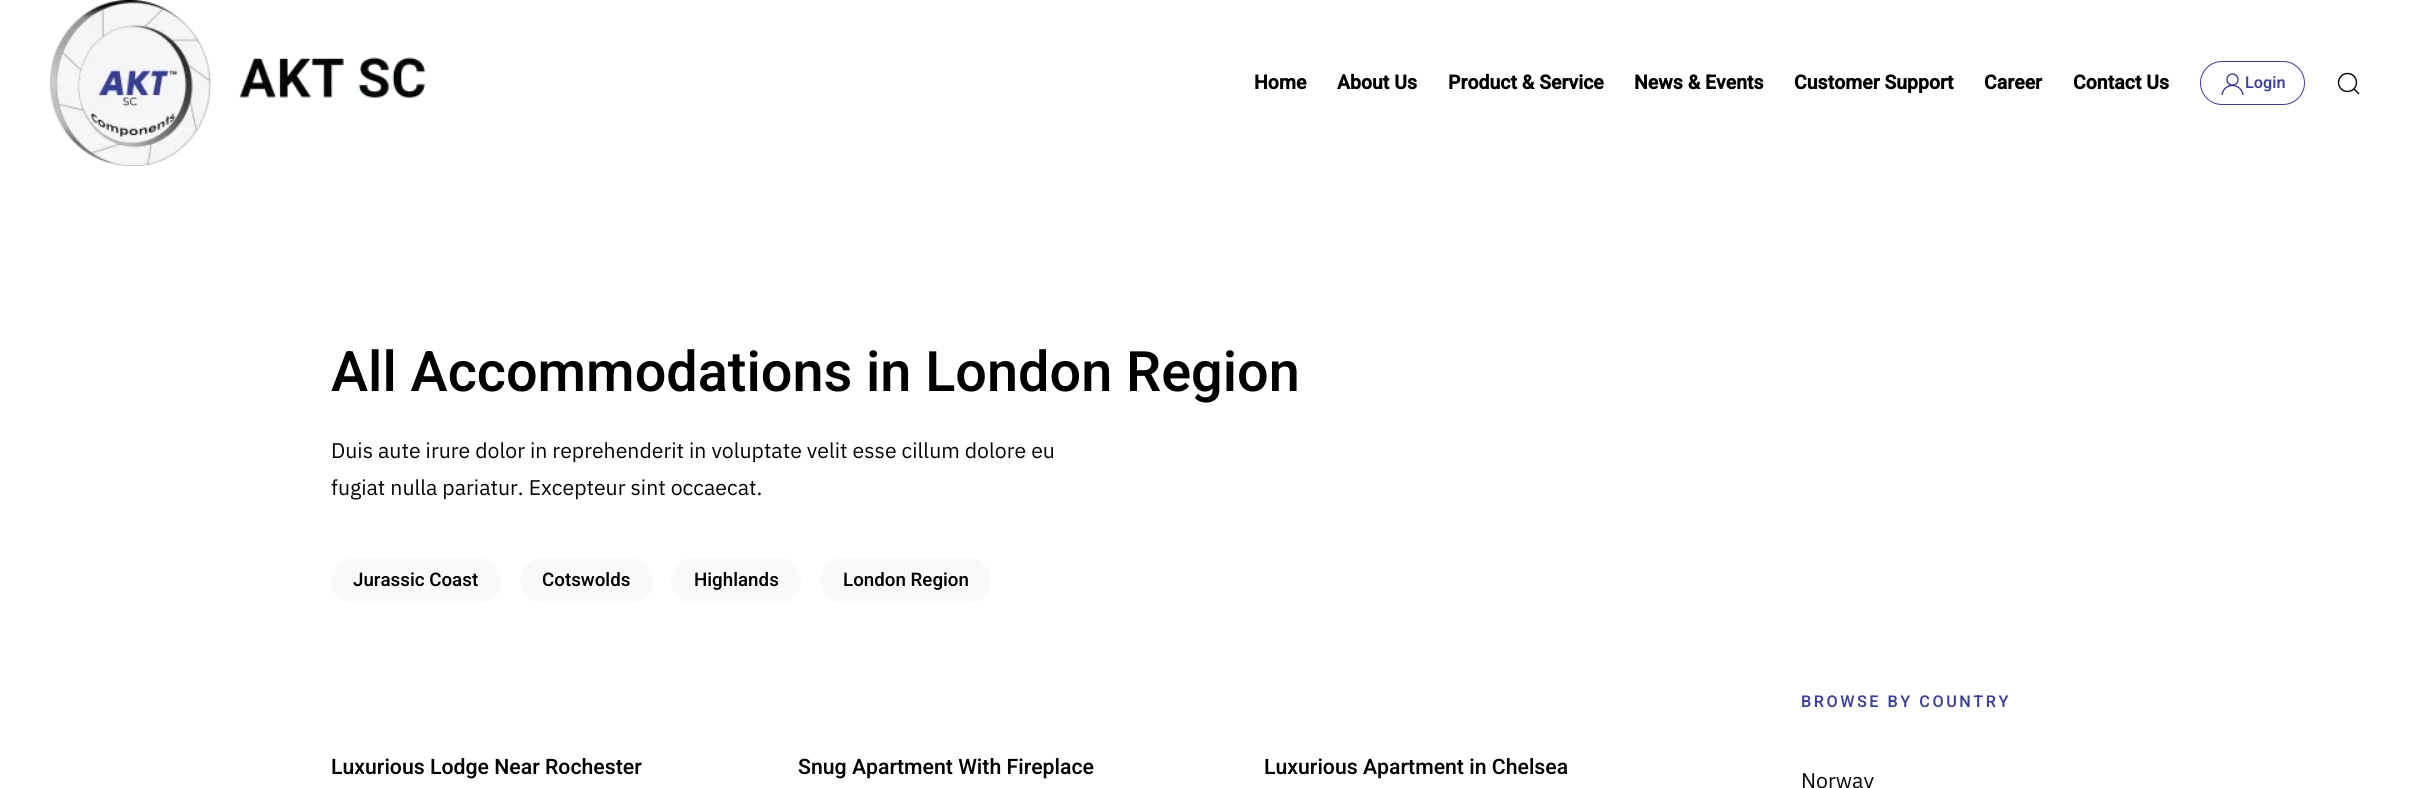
#include <cairo.h>
#include <math.h>
#include <stddef.h>


static void spaced_text(cairo_t *cr, double x, double y, const char *s, double letter, double word) {
    cairo_move_to(cr, x, y);
    while (*s) {
        char ch[5] = {0};
        int n = 0;
        do ch[n++] = *s++; while ((*s & 0xC0) == 0x80);
        cairo_show_text(cr, ch);
        cairo_rel_move_to(cr, letter + word * (*ch == ' '), 0);
    }
}

static void round_rect(cairo_t *cr, double x, double y, double w, double h, double r) {
    cairo_new_sub_path(cr);
    cairo_arc(cr, x + w - r, y + h - r, r, 0, M_PI / 2);
    cairo_arc(cr, x + r, y + h - r, r, M_PI / 2, M_PI);
    cairo_arc(cr, x + r, y + r, r, M_PI, 1.5 * M_PI);
    cairo_arc(cr, x + w - r, y + r, r, 1.5 * M_PI, 2 * M_PI);
    cairo_close_path(cr);
}

static void picture(cairo_t *cr, const char *path, double x, double y, double w, double h) {
    cairo_surface_t *image = cairo_image_surface_create_from_png(path);
    cairo_save(cr);
    cairo_set_source_surface(cr, image, x, y);
    cairo_rectangle(cr, x, y, w, h);
    cairo_fill(cr);
    cairo_restore(cr);
    cairo_surface_destroy(image);
}

int main(void) {
    cairo_surface_t *surface = cairo_image_surface_create(CAIRO_FORMAT_RGB24, 2411, 788);
    cairo_t *cr = cairo_create(surface);
    cairo_font_options_t *options = cairo_font_options_create();
    cairo_font_options_set_hint_metrics(options, CAIRO_HINT_METRICS_OFF);
    cairo_font_options_set_hint_style(options, CAIRO_HINT_STYLE_NONE);
    cairo_set_font_options(cr, options);
    cairo_set_miter_limit(cr, 4);
    cairo_set_source_rgb(cr, 1, 1, 1);
    cairo_paint(cr);
    picture(cr, "img1.png", 50, 0, 375, 166);
    cairo_select_font_face(cr, "Heebo", CAIRO_FONT_SLANT_NORMAL, CAIRO_FONT_WEIGHT_BOLD);
    cairo_set_font_size(cr, 19.5);
    cairo_set_source_rgb(cr, 0, 0, 0);
    cairo_move_to(cr, 1254, 89);
    cairo_show_text(cr, "Home");
    cairo_move_to(cr, 1337, 89);
    cairo_show_text(cr, "About Us");
    cairo_move_to(cr, 1448, 89);
    cairo_show_text(cr, "Product & Service");
    cairo_move_to(cr, 1634, 89);
    cairo_show_text(cr, "News & Events");
    cairo_move_to(cr, 1794, 89);
    cairo_show_text(cr, "Customer Support");
    cairo_move_to(cr, 1984, 89);
    cairo_show_text(cr, "Career");
    cairo_move_to(cr, 2073, 89);
    cairo_show_text(cr, "Contact Us");
    round_rect(cr, 2200.5, 61.5, 104, 43, 21.5);
    cairo_set_source_rgb(cr, 0.239, 0.247, 0.592);
    cairo_set_line_width(cr, 1);
    cairo_stroke(cr);
    cairo_arc(cr, 2232.5, 79.5, 5.5, 0, 2 * M_PI);
    cairo_set_line_width(cr, 1.4);
    cairo_stroke(cr);
    cairo_new_path(cr);
    cairo_move_to(cr, 2222, 95);
    cairo_curve_to(cr, 2224, 82, 2241, 82.5, 2243, 95);
    cairo_stroke(cr);
    cairo_select_font_face(cr, "Heebo Medium", CAIRO_FONT_SLANT_NORMAL, CAIRO_FONT_WEIGHT_NORMAL);
    cairo_set_font_size(cr, 16.25);
    cairo_move_to(cr, 2245, 88);
    cairo_show_text(cr, "Login");
    cairo_new_path(cr);
    cairo_arc(cr, 2347.5, 82.5, 9, 0, 2 * M_PI);
    cairo_set_source_rgb(cr, 0, 0, 0);
    cairo_stroke(cr);
    cairo_new_path(cr);
    cairo_move_to(cr, 2354, 89);
    cairo_line_to(cr, 2359, 94);
    cairo_close_path(cr);
    cairo_stroke(cr);
    cairo_set_font_size(cr, 55.75);
    cairo_move_to(cr, 331, 391);
    cairo_show_text(cr, "All Accommodations in London Region");
    cairo_select_font_face(cr, "IBM Plex Sans", CAIRO_FONT_SLANT_NORMAL, CAIRO_FONT_WEIGHT_NORMAL);
    cairo_set_font_size(cr, 21.25);
    cairo_set_source_rgb(cr, 0.027, 0.027, 0.027);
    cairo_move_to(cr, 331, 458);
    cairo_show_text(cr, "Duis aute irure dolor in reprehenderit in voluptate velit esse cillum dolore eu");
    cairo_move_to(cr, 331, 495);
    cairo_show_text(cr, "fugiat nulla pariatur. Excepteur sint occaecat.");
    cairo_set_source_rgb(cr, 0.973, 0.973, 0.973);
    round_rect(cr, 331, 558, 170, 45, 22.5);
    cairo_fill(cr);
    cairo_select_font_face(cr, "Heebo Medium", CAIRO_FONT_SLANT_NORMAL, CAIRO_FONT_WEIGHT_NORMAL);
    cairo_set_font_size(cr, 18.75);
    cairo_set_source_rgb(cr, 0, 0, 0);
    cairo_move_to(cr, 353, 586);
    cairo_show_text(cr, "Jurassic Coast");
    cairo_set_source_rgb(cr, 0.973, 0.973, 0.973);
    round_rect(cr, 520, 558, 133, 45, 22.5);
    cairo_fill(cr);
    cairo_set_source_rgb(cr, 0, 0, 0);
    cairo_move_to(cr, 542, 586);
    cairo_show_text(cr, "Cotswolds");
    cairo_set_source_rgb(cr, 0.973, 0.973, 0.973);
    round_rect(cr, 671, 558, 130, 45, 22.5);
    cairo_fill(cr);
    cairo_set_source_rgb(cr, 0, 0, 0);
    cairo_move_to(cr, 694, 586);
    cairo_show_text(cr, "Highlands");
    cairo_set_source_rgb(cr, 0.973, 0.973, 0.973);
    round_rect(cr, 820, 558, 171, 45, 22.5);
    cairo_fill(cr);
    cairo_set_source_rgb(cr, 0, 0, 0);
    cairo_move_to(cr, 843, 586);
    cairo_show_text(cr, "London Region");
    cairo_set_font_size(cr, 21.25);
    cairo_move_to(cr, 331, 774);
    cairo_show_text(cr, "Luxurious Lodge Near Rochester");
    cairo_move_to(cr, 798, 774);
    cairo_show_text(cr, "Snug Apartment With Fireplace");
    cairo_move_to(cr, 1264, 774);
    cairo_show_text(cr, "Luxurious Apartment in Chelsea");
    cairo_set_font_size(cr, 16.25);
    cairo_set_source_rgb(cr, 0.239, 0.247, 0.592);
    spaced_text(cr, 1801, 707, "BROWSE BY COUNTRY", 2.5, 0);
    cairo_select_font_face(cr, "IBM Plex Sans", CAIRO_FONT_SLANT_NORMAL, CAIRO_FONT_WEIGHT_NORMAL);
    cairo_set_font_size(cr, 21.25);
    cairo_set_source_rgb(cr, 0.027, 0.027, 0.027);
    cairo_move_to(cr, 1801, 788);
    cairo_show_text(cr, "Norway");
    cairo_surface_write_to_png(surface, "page.png");
    cairo_font_options_destroy(options);
    cairo_destroy(cr);
    cairo_surface_destroy(surface);
    return 0;
}
